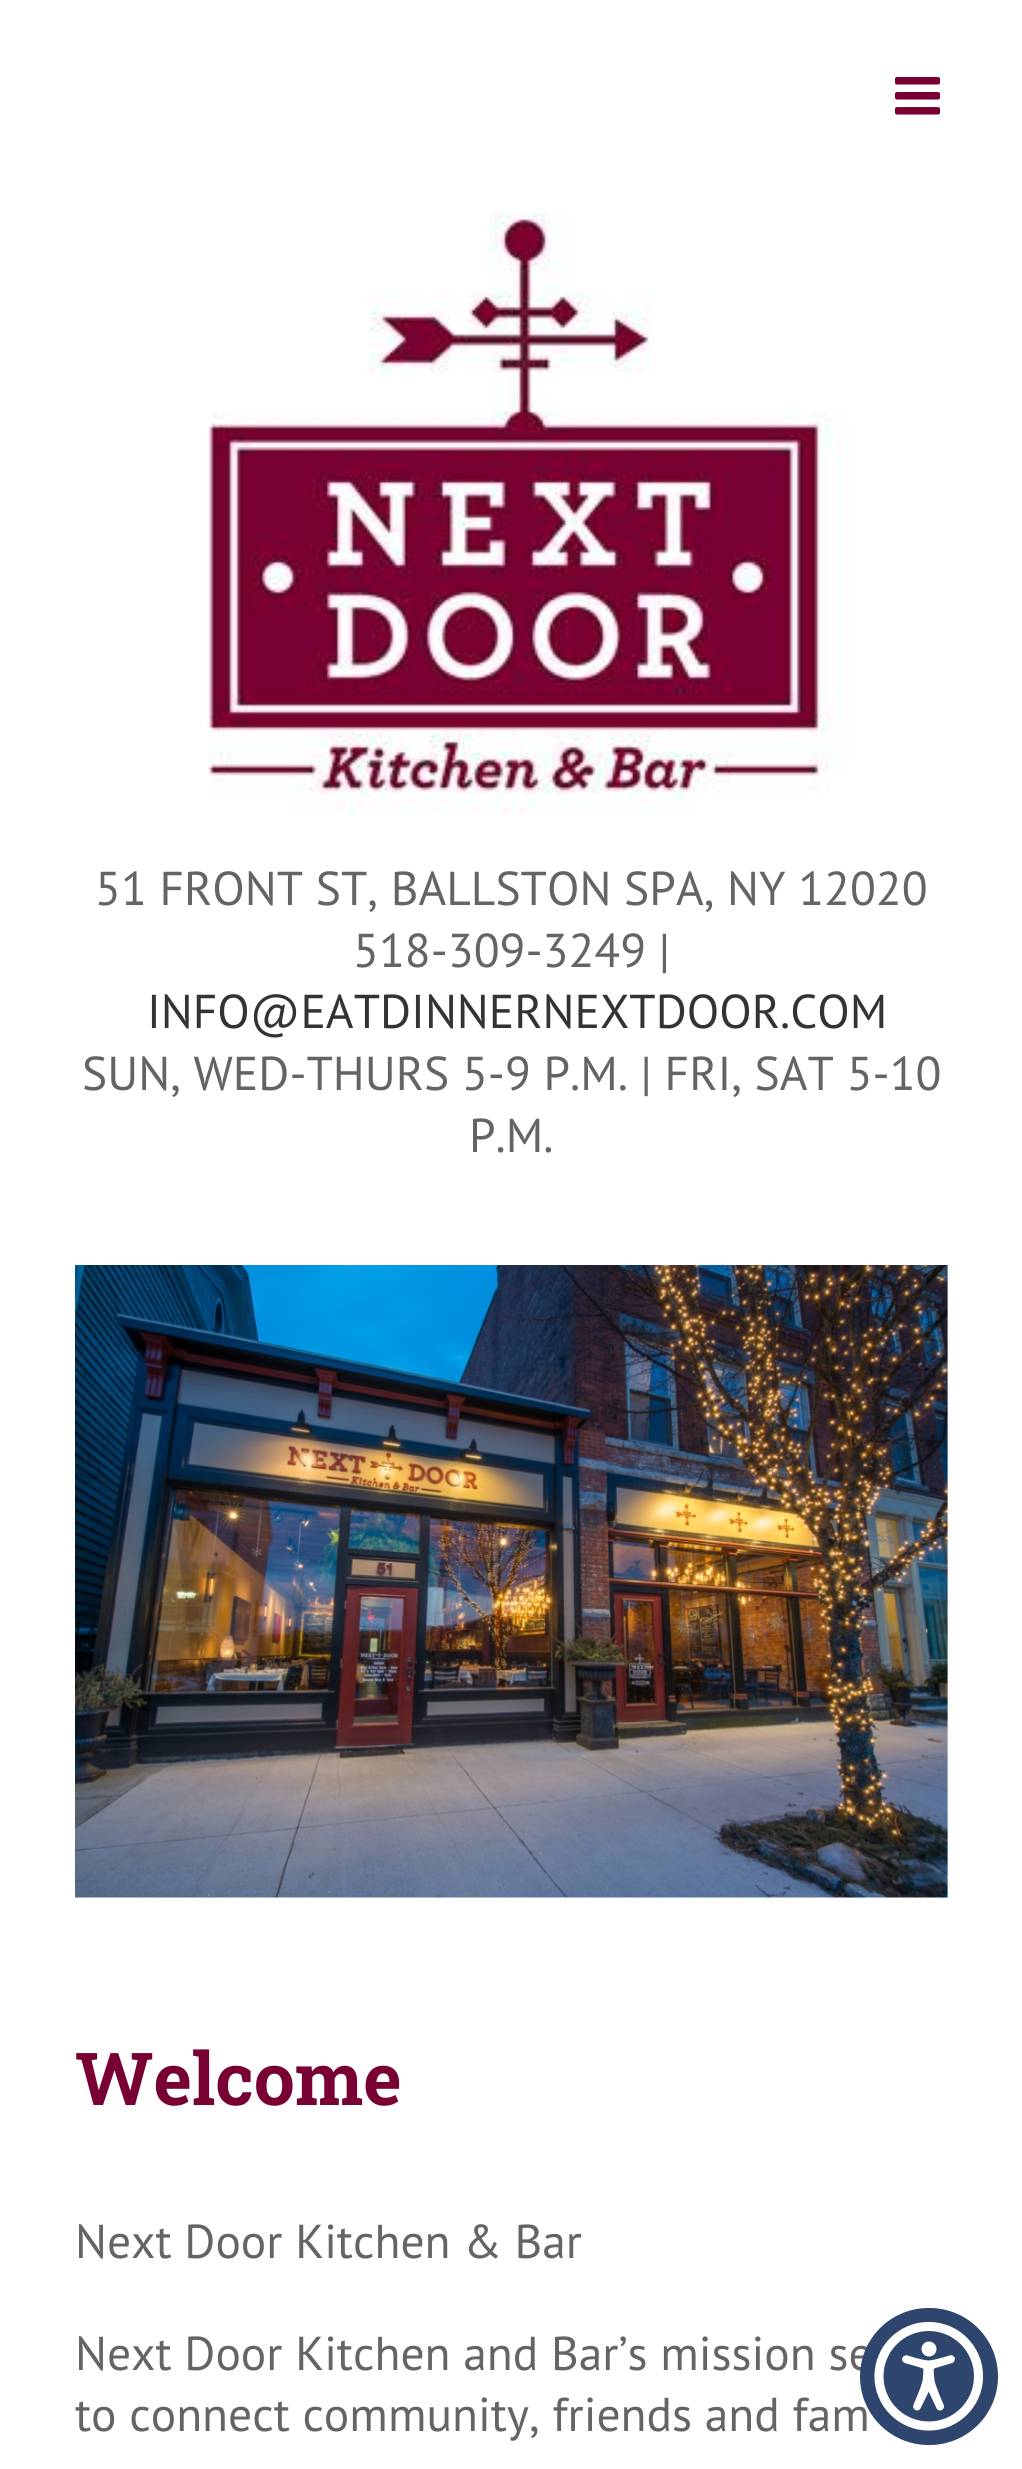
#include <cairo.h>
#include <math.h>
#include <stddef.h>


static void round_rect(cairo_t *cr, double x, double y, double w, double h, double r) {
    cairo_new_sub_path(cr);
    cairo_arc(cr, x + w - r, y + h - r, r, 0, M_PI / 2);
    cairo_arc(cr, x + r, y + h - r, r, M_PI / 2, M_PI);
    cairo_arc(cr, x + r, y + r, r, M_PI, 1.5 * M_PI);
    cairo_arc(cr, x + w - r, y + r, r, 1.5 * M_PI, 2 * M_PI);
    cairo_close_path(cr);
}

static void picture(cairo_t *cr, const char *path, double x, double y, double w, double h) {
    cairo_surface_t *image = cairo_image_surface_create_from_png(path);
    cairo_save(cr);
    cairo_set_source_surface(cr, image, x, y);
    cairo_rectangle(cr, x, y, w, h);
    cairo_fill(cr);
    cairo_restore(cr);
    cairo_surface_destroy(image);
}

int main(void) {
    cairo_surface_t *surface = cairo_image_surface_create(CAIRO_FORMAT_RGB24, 1022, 2469);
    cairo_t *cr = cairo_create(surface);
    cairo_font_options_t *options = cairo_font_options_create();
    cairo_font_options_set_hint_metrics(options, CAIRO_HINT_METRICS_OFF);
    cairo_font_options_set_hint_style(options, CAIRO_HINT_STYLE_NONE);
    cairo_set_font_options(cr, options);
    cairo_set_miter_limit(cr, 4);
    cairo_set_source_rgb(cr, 1, 1, 1);
    cairo_paint(cr);
    picture(cr, "img1.png", 895, 77, 45, 38);
    picture(cr, "img2.png", 207, 212, 644, 602);
    cairo_select_font_face(cr, "PT Sans", CAIRO_FONT_SLANT_NORMAL, CAIRO_FONT_WEIGHT_NORMAL);
    cairo_set_font_size(cr, 47.5);
    cairo_set_source_rgb(cr, 0.392, 0.392, 0.392);
    cairo_move_to(cr, 95, 905);
    cairo_show_text(cr, "51 FRONT ST, BALLSTON SPA, NY 12020");
    cairo_move_to(cr, 353, 967);
    cairo_show_text(cr, "518-309-3249 |");
    cairo_set_source_rgb(cr, 0.2, 0.2, 0.2);
    cairo_move_to(cr, 147, 1028);
    cairo_show_text(cr, "INFO@EATDINNERNEXTDOOR.COM");
    cairo_set_source_rgb(cr, 0.392, 0.392, 0.392);
    cairo_move_to(cr, 82, 1090);
    cairo_show_text(cr, "SUN, WED-THURS 5-9 P.M. | FRI, SAT 5-10");
    cairo_move_to(cr, 469, 1152);
    cairo_show_text(cr, "P.M.");
    picture(cr, "img3.png", 75, 1265, 873, 633);
    cairo_select_font_face(cr, "Roboto Slab", CAIRO_FONT_SLANT_NORMAL, CAIRO_FONT_WEIGHT_BOLD);
    cairo_set_font_size(cr, 73);
    cairo_set_source_rgb(cr, 0.475, 0, 0.2);
    cairo_move_to(cr, 75, 2105);
    cairo_show_text(cr, "Welcome");
    cairo_select_font_face(cr, "PT Sans", CAIRO_FONT_SLANT_NORMAL, CAIRO_FONT_WEIGHT_NORMAL);
    cairo_set_font_size(cr, 47.5);
    cairo_set_source_rgb(cr, 0.392, 0.392, 0.392);
    cairo_move_to(cr, 75, 2258);
    cairo_show_text(cr, "Next Door Kitchen & Bar");
    cairo_move_to(cr, 75, 2370);
    cairo_show_text(cr, "Next Door Kitchen and Bar’s mission se");
    cairo_move_to(cr, 75, 2431);
    cairo_show_text(cr, "to connect community, friends and fam");
    cairo_set_source_rgb(cr, 0.18, 0.271, 0.427);
    round_rect(cr, 860, 2308, 138, 137, 68.5);
    cairo_fill(cr);
    picture(cr, "img4.png", 874, 2321, 110, 110);
    cairo_surface_write_to_png(surface, "page.png");
    cairo_font_options_destroy(options);
    cairo_destroy(cr);
    cairo_surface_destroy(surface);
    return 0;
}
